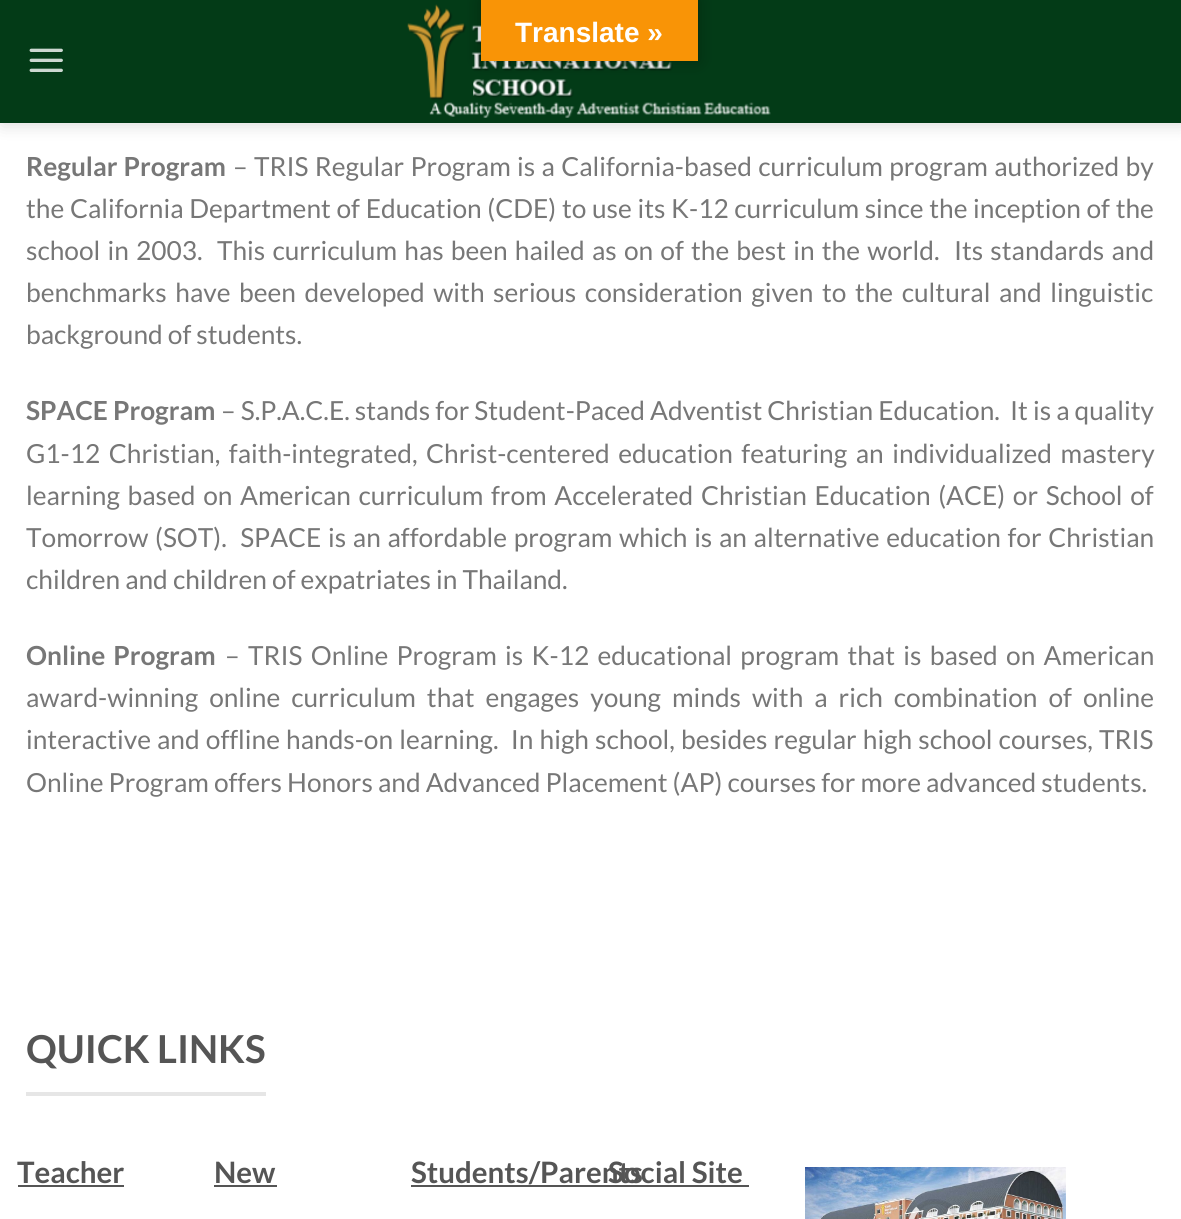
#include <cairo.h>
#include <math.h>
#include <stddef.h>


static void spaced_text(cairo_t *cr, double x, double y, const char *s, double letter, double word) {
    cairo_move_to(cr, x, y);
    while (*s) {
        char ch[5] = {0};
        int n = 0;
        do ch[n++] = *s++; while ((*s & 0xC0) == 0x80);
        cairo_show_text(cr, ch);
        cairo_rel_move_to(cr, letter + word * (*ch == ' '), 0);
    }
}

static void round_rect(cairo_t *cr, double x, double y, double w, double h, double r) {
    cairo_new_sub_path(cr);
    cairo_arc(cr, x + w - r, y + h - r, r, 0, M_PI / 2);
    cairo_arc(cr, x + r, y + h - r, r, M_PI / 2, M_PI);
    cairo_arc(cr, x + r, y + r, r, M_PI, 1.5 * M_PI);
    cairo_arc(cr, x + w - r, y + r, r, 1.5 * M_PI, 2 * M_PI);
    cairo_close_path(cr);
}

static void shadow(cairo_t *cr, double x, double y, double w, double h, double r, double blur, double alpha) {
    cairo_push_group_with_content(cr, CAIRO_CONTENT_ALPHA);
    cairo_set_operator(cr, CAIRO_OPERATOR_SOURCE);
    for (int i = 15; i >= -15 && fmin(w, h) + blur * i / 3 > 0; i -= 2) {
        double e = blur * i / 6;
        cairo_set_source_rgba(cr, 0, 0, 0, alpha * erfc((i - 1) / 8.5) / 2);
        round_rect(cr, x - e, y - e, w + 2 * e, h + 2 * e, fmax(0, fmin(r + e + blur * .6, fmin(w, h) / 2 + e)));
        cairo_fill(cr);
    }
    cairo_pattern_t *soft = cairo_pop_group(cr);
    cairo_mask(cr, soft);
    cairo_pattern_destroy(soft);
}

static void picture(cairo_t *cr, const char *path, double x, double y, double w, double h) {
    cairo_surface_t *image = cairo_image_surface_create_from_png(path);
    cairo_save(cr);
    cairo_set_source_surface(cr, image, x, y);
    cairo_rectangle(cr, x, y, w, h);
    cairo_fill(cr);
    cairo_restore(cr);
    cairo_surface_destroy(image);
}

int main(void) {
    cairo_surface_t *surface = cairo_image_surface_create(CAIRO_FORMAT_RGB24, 1181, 1219);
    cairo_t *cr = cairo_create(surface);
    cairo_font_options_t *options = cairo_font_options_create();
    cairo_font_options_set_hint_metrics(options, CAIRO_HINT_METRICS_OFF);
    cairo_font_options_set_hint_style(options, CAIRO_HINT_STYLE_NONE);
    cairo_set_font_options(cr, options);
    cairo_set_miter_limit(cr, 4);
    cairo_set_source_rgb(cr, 1, 1, 1);
    cairo_paint(cr);
    cairo_set_source_rgb(cr, 0, 0, 0);
    shadow(cr, 2, 2, 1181, 122, 0, 9, 0.15);
    cairo_set_source_rgb(cr, 0.012, 0.231, 0.09);
    cairo_rectangle(cr, 0, 0, 1181, 123);
    cairo_fill(cr);
    picture(cr, "img2.png", 407, 4, 364, 114);
    cairo_set_source_rgb(cr, 0, 0, 0);
    shadow(cr, 481, 0, 217, 61, 0, 8, 0.3);
    cairo_set_source_rgb(cr, 0.973, 0.58, 0.024);
    cairo_rectangle(cr, 481, 0, 217, 61);
    cairo_fill(cr);
    cairo_select_font_face(cr, "Liberation Sans", CAIRO_FONT_SLANT_NORMAL, CAIRO_FONT_WEIGHT_BOLD);
    cairo_set_font_size(cr, 28);
    cairo_set_source_rgb(cr, 1, 1, 1);
    cairo_move_to(cr, 515, 42);
    cairo_show_text(cr, "Translate »");
    picture(cr, "img1.png", 29, 48, 34, 24);
    cairo_select_font_face(cr, "Lato", CAIRO_FONT_SLANT_NORMAL, CAIRO_FONT_WEIGHT_BOLD);
    cairo_set_font_size(cr, 26.3);
    cairo_set_source_rgb(cr, 0.467, 0.467, 0.467);
    spaced_text(cr, 26, 176, "Regular Program", 0, 1);
    cairo_select_font_face(cr, "Lato", CAIRO_FONT_SLANT_NORMAL, CAIRO_FONT_WEIGHT_NORMAL);
    spaced_text(cr, 233, 176, "– TRIS Regular Program is a California-based curriculum program authorized by", 0, 1.25);
    spaced_text(cr, 26, 218, "the California Department of Education (CDE) to use its K-12 curriculum since the inception of the", 0, 0.6);
    spaced_text(cr, 26, 260, "school in 2003.  This curriculum has been hailed as on of the best in the world.  Its standards and", 0, 2.1);
    spaced_text(cr, 26, 302, "benchmarks have been developed with serious consideration given to the cultural and linguistic", 0, 3.5);
    cairo_move_to(cr, 26, 344);
    cairo_show_text(cr, "background of students.");
    cairo_select_font_face(cr, "Lato", CAIRO_FONT_SLANT_NORMAL, CAIRO_FONT_WEIGHT_BOLD);
    cairo_move_to(cr, 26, 420);
    cairo_show_text(cr, "SPACE Program");
    cairo_select_font_face(cr, "Lato", CAIRO_FONT_SLANT_NORMAL, CAIRO_FONT_WEIGHT_NORMAL);
    cairo_move_to(cr, 221, 420);
    cairo_show_text(cr, "– S.P.A.C.E. stands for Student-Paced Adventist Christian Education.  It is a quality");
    spaced_text(cr, 26, 463, "G1-12 Christian, faith-integrated, Christ-centered education featuring an individualized mastery", 0, 3.5);
    spaced_text(cr, 26, 505, "learning based on American curriculum from Accelerated Christian Education (ACE) or School of", 0, 2.6);
    spaced_text(cr, 26, 547, "Tomorrow (SOT).  SPACE is an affordable program which is an alternative education for Christian", 0, 1.6);
    cairo_move_to(cr, 26, 589);
    cairo_show_text(cr, "children and children of expatriates in Thailand.");
    cairo_select_font_face(cr, "Lato", CAIRO_FONT_SLANT_NORMAL, CAIRO_FONT_WEIGHT_BOLD);
    spaced_text(cr, 26, 665, "Online Program", 0, 3);
    cairo_select_font_face(cr, "Lato", CAIRO_FONT_SLANT_NORMAL, CAIRO_FONT_WEIGHT_NORMAL);
    spaced_text(cr, 225, 665, "– TRIS Online Program is K-12 educational program that is based on American", 0, 3.25);
    spaced_text(cr, 26, 707, "award-winning online curriculum that engages young minds with a rich combination of online", 0, 5.9);
    spaced_text(cr, 26, 749, "interactive and offline hands-on learning.  In high school, besides regular high school courses, TRIS", 0, 1);
    cairo_move_to(cr, 26, 792);
    cairo_show_text(cr, "Online Program offers Honors and Advanced Placement (AP) courses for more advanced students.");
    cairo_set_source_rgb(cr, 0.902, 0.902, 0.902);
    cairo_rectangle(cr, 26, 1092, 240, 4);
    cairo_fill(cr);
    cairo_select_font_face(cr, "Lato", CAIRO_FONT_SLANT_NORMAL, CAIRO_FONT_WEIGHT_BOLD);
    cairo_set_font_size(cr, 38.5);
    cairo_set_source_rgb(cr, 0.333, 0.333, 0.333);
    cairo_move_to(cr, 26, 1063);
    cairo_show_text(cr, "QUICK LINKS");
    cairo_set_font_size(cr, 29.5);
    cairo_move_to(cr, 17, 1183);
    cairo_show_text(cr, "Teacher");
    cairo_rectangle(cr, 18, 1185, 106, 2);
    cairo_fill(cr);
    cairo_move_to(cr, 214, 1183);
    cairo_show_text(cr, "New");
    cairo_rectangle(cr, 214, 1185, 63, 2);
    cairo_fill(cr);
    cairo_move_to(cr, 411, 1183);
    cairo_show_text(cr, "Students/Parents");
    cairo_rectangle(cr, 411, 1185, 338, 2);
    cairo_fill(cr);
    cairo_move_to(cr, 608, 1183);
    cairo_show_text(cr, "Social Site");
    picture(cr, "img3.png", 805, 1167, 261, 52);
    cairo_new_path(cr);
    cairo_move_to(cr, 918, 1208.5);
    cairo_curve_to(cr, 922, 1204, 928.5, 1201.5, 934.5, 1201.5);
    cairo_curve_to(cr, 962.5, 1201.5, 966.5, 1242.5, 939, 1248);
    cairo_curve_to(cr, 931.5, 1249.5, 923.5, 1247, 918, 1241.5);
    cairo_set_source_rgba(cr, 0, 0, 0, 0.08);
    cairo_set_line_width(cr, 5.2);
    cairo_stroke(cr);
    cairo_new_path(cr);
    cairo_move_to(cr, 918, 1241.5);
    cairo_curve_to(cr, 908.5, 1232.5, 908.5, 1217.5, 918, 1208.5);
    cairo_set_source_rgba(cr, 1, 1, 1, 0.8);
    cairo_stroke(cr);
    cairo_surface_write_to_png(surface, "page.png");
    cairo_font_options_destroy(options);
    cairo_destroy(cr);
    cairo_surface_destroy(surface);
    return 0;
}
